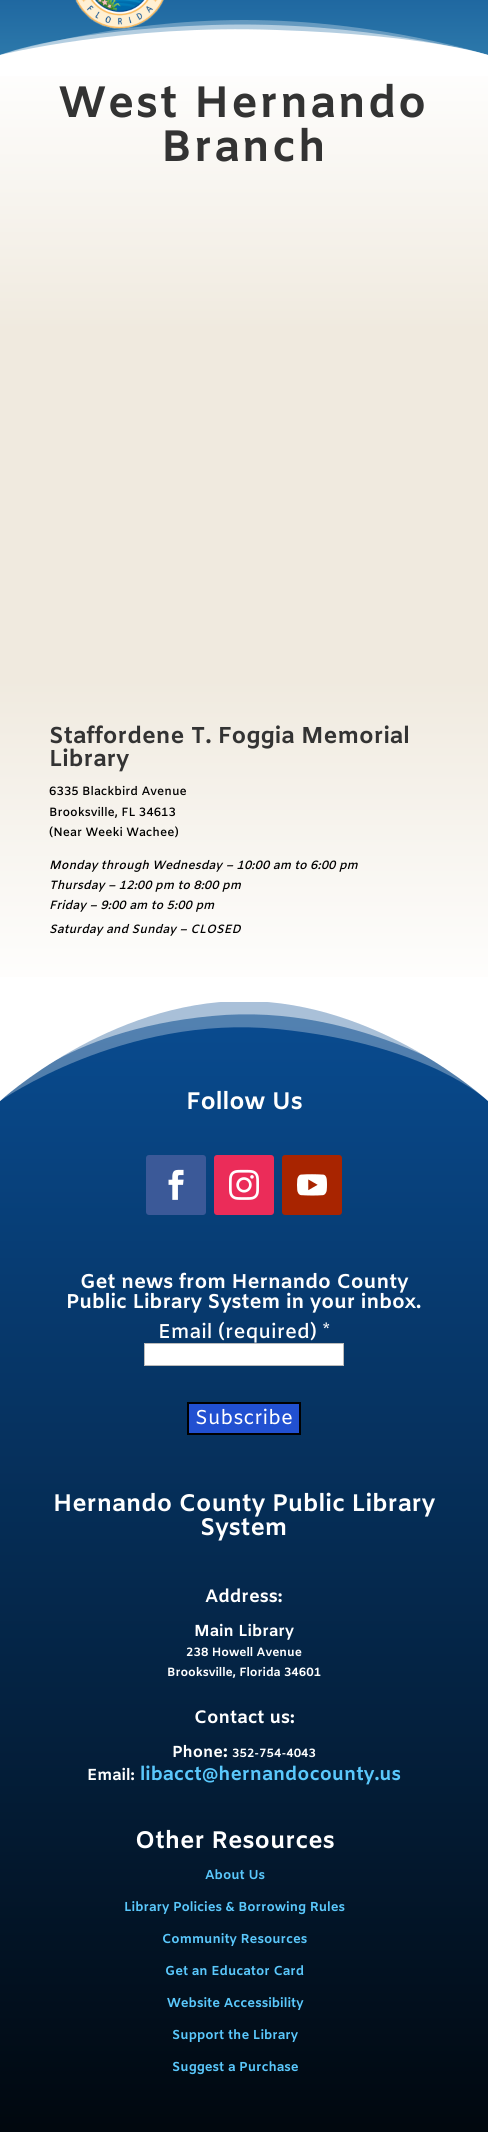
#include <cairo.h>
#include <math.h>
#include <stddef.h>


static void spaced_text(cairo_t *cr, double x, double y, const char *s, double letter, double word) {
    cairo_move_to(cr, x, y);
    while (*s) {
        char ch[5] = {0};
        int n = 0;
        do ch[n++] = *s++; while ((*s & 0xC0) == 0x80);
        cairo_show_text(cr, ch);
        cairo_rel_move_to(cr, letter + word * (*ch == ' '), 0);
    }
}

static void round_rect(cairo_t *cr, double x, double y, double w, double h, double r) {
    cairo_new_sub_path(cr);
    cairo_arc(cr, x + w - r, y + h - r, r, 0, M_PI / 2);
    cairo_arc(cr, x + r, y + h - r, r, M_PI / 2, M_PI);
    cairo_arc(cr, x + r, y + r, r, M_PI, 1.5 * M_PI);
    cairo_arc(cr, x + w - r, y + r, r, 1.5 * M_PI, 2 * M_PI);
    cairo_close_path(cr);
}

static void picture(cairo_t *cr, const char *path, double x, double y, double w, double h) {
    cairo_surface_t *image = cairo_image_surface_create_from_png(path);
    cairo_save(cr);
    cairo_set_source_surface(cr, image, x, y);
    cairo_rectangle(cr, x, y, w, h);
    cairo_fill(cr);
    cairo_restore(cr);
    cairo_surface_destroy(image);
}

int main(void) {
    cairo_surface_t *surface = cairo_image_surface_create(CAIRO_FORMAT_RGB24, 488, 2132);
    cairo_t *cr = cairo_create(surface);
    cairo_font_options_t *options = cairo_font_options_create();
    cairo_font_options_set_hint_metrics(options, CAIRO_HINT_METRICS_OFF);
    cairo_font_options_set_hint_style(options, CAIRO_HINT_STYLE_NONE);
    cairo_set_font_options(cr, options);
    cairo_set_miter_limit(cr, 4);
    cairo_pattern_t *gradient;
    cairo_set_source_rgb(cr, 1, 1, 1);
    cairo_paint(cr);
    gradient = cairo_pattern_create_linear(244, -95, 244, 55);
    cairo_pattern_add_color_stop_rgba(gradient, 0, 0.035, 0.298, 0.569, 1);
    cairo_pattern_add_color_stop_rgba(gradient, 1, 0.173, 0.471, 0.667, 1);
    cairo_set_source(cr, gradient);
    cairo_pattern_destroy(gradient);
    cairo_rectangle(cr, 0, 0, 488, 55);
    cairo_fill(cr);
    picture(cr, "img1.png", 75, 0, 89, 29);
    cairo_set_source_rgba(cr, 1, 1, 1, 0.3);
    cairo_new_path(cr);
    cairo_move_to(cr, 0, 55);
    cairo_curve_to(cr, 7, 53, 114, 20, 244, 20);
    cairo_curve_to(cr, 379, 20, 488, 55, 488, 55);
    cairo_close_path(cr);
    cairo_fill(cr);
    cairo_set_source_rgba(cr, 1, 1, 1, 0.5);
    cairo_new_path(cr);
    cairo_move_to(cr, 0, 55);
    cairo_curve_to(cr, 5, 53, 67, 30, 212, 25);
    cairo_curve_to(cr, 363, 20, 488, 55, 488, 55);
    cairo_close_path(cr);
    cairo_fill(cr);
    cairo_set_source_rgb(cr, 1, 1, 1);
    cairo_new_path(cr);
    cairo_move_to(cr, 277, 30);
    cairo_curve_to(cr, 429, 35, 488, 55, 488, 55);
    cairo_line_to(cr, 0, 55);
    cairo_curve_to(cr, 0, 55, 124, 24, 277, 30);
    cairo_close_path(cr);
    cairo_fill(cr);
    gradient = cairo_pattern_create_linear(244, 55, 244, 1002);
    cairo_pattern_add_color_stop_rgba(gradient, 0, 1, 1, 1, 1);
    cairo_pattern_add_color_stop_rgba(gradient, 0.29, 0.941, 0.918, 0.875, 1);
    cairo_pattern_add_color_stop_rgba(gradient, 0.66, 0.941, 0.918, 0.875, 1);
    cairo_pattern_add_color_stop_rgba(gradient, 1, 1, 1, 1, 1);
    cairo_set_source(cr, gradient);
    cairo_pattern_destroy(gradient);
    cairo_rectangle(cr, 0, 76, 488, 901);
    cairo_fill(cr);
    cairo_select_font_face(cr, "Amiko", CAIRO_FONT_SLANT_NORMAL, CAIRO_FONT_WEIGHT_BOLD);
    cairo_set_font_size(cr, 44);
    cairo_set_source_rgb(cr, 0.2, 0.2, 0.2);
    spaced_text(cr, 59, 117, "West Hernando", 2, 0);
    spaced_text(cr, 161, 161, "Branch", 2, 0);
    cairo_set_font_size(cr, 23);
    cairo_move_to(cr, 49, 743);
    cairo_show_text(cr, "Staffordene T. Foggia Memorial");
    cairo_move_to(cr, 49, 766);
    cairo_show_text(cr, "Library");
    cairo_select_font_face(cr, "Amiko SemiBold", CAIRO_FONT_SLANT_NORMAL, CAIRO_FONT_WEIGHT_NORMAL);
    cairo_set_font_size(cr, 12);
    cairo_set_source_rgb(cr, 0, 0, 0);
    cairo_move_to(cr, 49, 795);
    cairo_show_text(cr, "6335 Blackbird Avenue");
    cairo_move_to(cr, 49, 816);
    cairo_show_text(cr, "Brooksville, FL 34613");
    cairo_move_to(cr, 49, 836);
    cairo_show_text(cr, "(Near Weeki Wachee)");
    cairo_select_font_face(cr, "Amiko SemiBold", CAIRO_FONT_SLANT_ITALIC, CAIRO_FONT_WEIGHT_NORMAL);
    cairo_move_to(cr, 49, 869);
    cairo_show_text(cr, "Monday through Wednesday – 10:00 am to 6:00 pm");
    cairo_move_to(cr, 49, 889);
    cairo_show_text(cr, "Thursday – 12:00 pm to 8:00 pm");
    cairo_move_to(cr, 49, 909);
    cairo_show_text(cr, "Friday – 9:00 am to 5:00 pm");
    cairo_move_to(cr, 49, 933);
    cairo_show_text(cr, "Saturday and Sunday – CLOSED");
    gradient = cairo_pattern_create_linear(244, 1002, 244, 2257);
    cairo_pattern_add_color_stop_rgba(gradient, 0, 0.035, 0.298, 0.569, 1);
    cairo_pattern_add_color_stop_rgba(gradient, 1, 0, 0, 0, 1);
    cairo_set_source(cr, gradient);
    cairo_pattern_destroy(gradient);
    cairo_rectangle(cr, 0, 1002, 488, 1130);
    cairo_fill(cr);
    cairo_select_font_face(cr, "Amiko", CAIRO_FONT_SLANT_NORMAL, CAIRO_FONT_WEIGHT_BOLD);
    cairo_set_font_size(cr, 24);
    cairo_set_source_rgb(cr, 1, 1, 1);
    cairo_move_to(cr, 186, 1109);
    cairo_show_text(cr, "Follow Us");
    cairo_save(cr);
    cairo_rectangle(cr, 0, 1002, 488, 100);
    cairo_clip(cr);
    cairo_set_source_rgba(cr, 1, 1, 1, 0.3);
    cairo_new_path(cr);
    cairo_move_to(cr, 277, 1029);
    cairo_curve_to(cr, 124, 1014, 0, 1101, 0, 1101);
    cairo_line_to(cr, 0, 1001);
    cairo_line_to(cr, 488, 1001);
    cairo_line_to(cr, 488, 1101);
    cairo_curve_to(cr, 488, 1101, 429, 1044, 277, 1029);
    cairo_close_path(cr);
    cairo_fill(cr);
    cairo_set_source_rgba(cr, 1, 1, 1, 0.5);
    cairo_new_path(cr);
    cairo_move_to(cr, 212, 1016);
    cairo_curve_to(cr, 363, 1001, 488, 1091, 488, 1091);
    cairo_line_to(cr, 488, 1001);
    cairo_line_to(cr, 0, 1001);
    cairo_line_to(cr, 0, 1101);
    cairo_curve_to(cr, 0, 1101, 61, 1030, 212, 1016);
    cairo_close_path(cr);
    cairo_fill(cr);
    cairo_set_source_rgb(cr, 1, 1, 1);
    cairo_new_path(cr);
    cairo_move_to(cr, 244, 1001);
    cairo_curve_to(cr, 379, 1001, 488, 1101, 488, 1101);
    cairo_line_to(cr, 488, 1001);
    cairo_line_to(cr, 0, 1001);
    cairo_line_to(cr, 0, 1101);
    cairo_curve_to(cr, 0, 1101, 109, 1001, 244, 1001);
    cairo_close_path(cr);
    cairo_fill(cr);
    cairo_restore(cr);
    cairo_set_source_rgb(cr, 0.231, 0.349, 0.596);
    round_rect(cr, 146, 1155, 60, 60, 3);
    cairo_fill(cr);
    picture(cr, "img2.png", 168, 1169, 16, 31);
    cairo_set_source_rgb(cr, 0.918, 0.173, 0.349);
    round_rect(cr, 214, 1155, 60, 60, 3);
    cairo_fill(cr);
    picture(cr, "img3.png", 229, 1169, 30, 31);
    cairo_set_source_rgb(cr, 0.659, 0.141, 0);
    round_rect(cr, 282, 1155, 60, 60, 3);
    cairo_fill(cr);
    picture(cr, "img4.png", 297, 1174, 30, 22);
    cairo_set_font_size(cr, 20);
    cairo_set_source_rgb(cr, 1, 1, 1);
    cairo_move_to(cr, 80, 1288);
    cairo_show_text(cr, "Get news from Hernando County");
    cairo_move_to(cr, 66, 1308);
    cairo_show_text(cr, "Public Library System in your inbox.");
    cairo_select_font_face(cr, "Amiko SemiBold", CAIRO_FONT_SLANT_NORMAL, CAIRO_FONT_WEIGHT_NORMAL);
    cairo_move_to(cr, 158, 1338);
    cairo_show_text(cr, "Email (required) *");
    cairo_rectangle(cr, 144.5, 1343.5, 199, 22);
    cairo_fill_preserve(cr);
    cairo_set_source_rgb(cr, 0.733, 0.733, 0.733);
    cairo_set_line_width(cr, 1);
    cairo_stroke(cr);
    cairo_set_source_rgb(cr, 0.129, 0.314, 0.82);
    cairo_rectangle(cr, 188, 1403, 112, 31);
    cairo_fill_preserve(cr);
    cairo_set_source_rgb(cr, 0, 0, 0);
    cairo_set_line_width(cr, 2);
    cairo_stroke(cr);
    cairo_select_font_face(cr, "Amiko", CAIRO_FONT_SLANT_NORMAL, CAIRO_FONT_WEIGHT_NORMAL);
    cairo_set_source_rgb(cr, 1, 1, 1);
    cairo_move_to(cr, 195, 1424);
    cairo_show_text(cr, "Subscribe");
    cairo_select_font_face(cr, "Amiko", CAIRO_FONT_SLANT_NORMAL, CAIRO_FONT_WEIGHT_BOLD);
    cairo_set_font_size(cr, 24);
    cairo_move_to(cr, 53, 1511);
    cairo_show_text(cr, "Hernando County Public Library");
    cairo_move_to(cr, 200, 1535);
    cairo_show_text(cr, "System");
    cairo_set_font_size(cr, 18);
    cairo_move_to(cr, 205, 1602);
    cairo_show_text(cr, "Address:");
    cairo_set_font_size(cr, 16);
    cairo_move_to(cr, 194, 1636);
    cairo_show_text(cr, "Main Library");
    cairo_set_font_size(cr, 12);
    cairo_move_to(cr, 186, 1656);
    cairo_show_text(cr, "238 Howell Avenue");
    cairo_move_to(cr, 167, 1676);
    cairo_show_text(cr, "Brooksville, Florida 34601");
    cairo_set_font_size(cr, 18);
    cairo_move_to(cr, 194, 1723);
    cairo_show_text(cr, "Contact us:");
    cairo_set_font_size(cr, 16);
    cairo_move_to(cr, 172, 1757);
    cairo_show_text(cr, "Phone");
    cairo_set_font_size(cr, 18);
    cairo_move_to(cr, 223, 1757);
    cairo_show_text(cr, ":");
    cairo_set_font_size(cr, 12);
    cairo_move_to(cr, 232, 1757);
    cairo_show_text(cr, "352-754-4043");
    cairo_set_font_size(cr, 16);
    cairo_move_to(cr, 87, 1780);
    cairo_show_text(cr, "Email:");
    cairo_set_font_size(cr, 19);
    cairo_set_source_rgb(cr, 0.353, 0.784, 0.988);
    cairo_move_to(cr, 140, 1780);
    cairo_show_text(cr, "libacct@hernandocounty.us");
    cairo_set_font_size(cr, 24);
    cairo_set_source_rgb(cr, 1, 1, 1);
    cairo_move_to(cr, 135, 1848);
    cairo_show_text(cr, "Other Resources");
    cairo_set_font_size(cr, 13);
    cairo_set_source_rgb(cr, 0.353, 0.784, 0.988);
    cairo_move_to(cr, 205, 1879);
    cairo_show_text(cr, "About Us");
    cairo_move_to(cr, 124, 1911);
    cairo_show_text(cr, "Library Policies & Borrowing Rules");
    cairo_move_to(cr, 162, 1943);
    cairo_show_text(cr, "Community Resources");
    cairo_move_to(cr, 165, 1975);
    cairo_show_text(cr, "Get an Educator Card");
    cairo_move_to(cr, 167, 2007);
    cairo_show_text(cr, "Website Accessibility");
    cairo_move_to(cr, 172, 2039);
    cairo_show_text(cr, "Support the Library");
    cairo_move_to(cr, 172, 2071);
    cairo_show_text(cr, "Suggest a Purchase");
    cairo_surface_write_to_png(surface, "page.png");
    cairo_font_options_destroy(options);
    cairo_destroy(cr);
    cairo_surface_destroy(surface);
    return 0;
}
